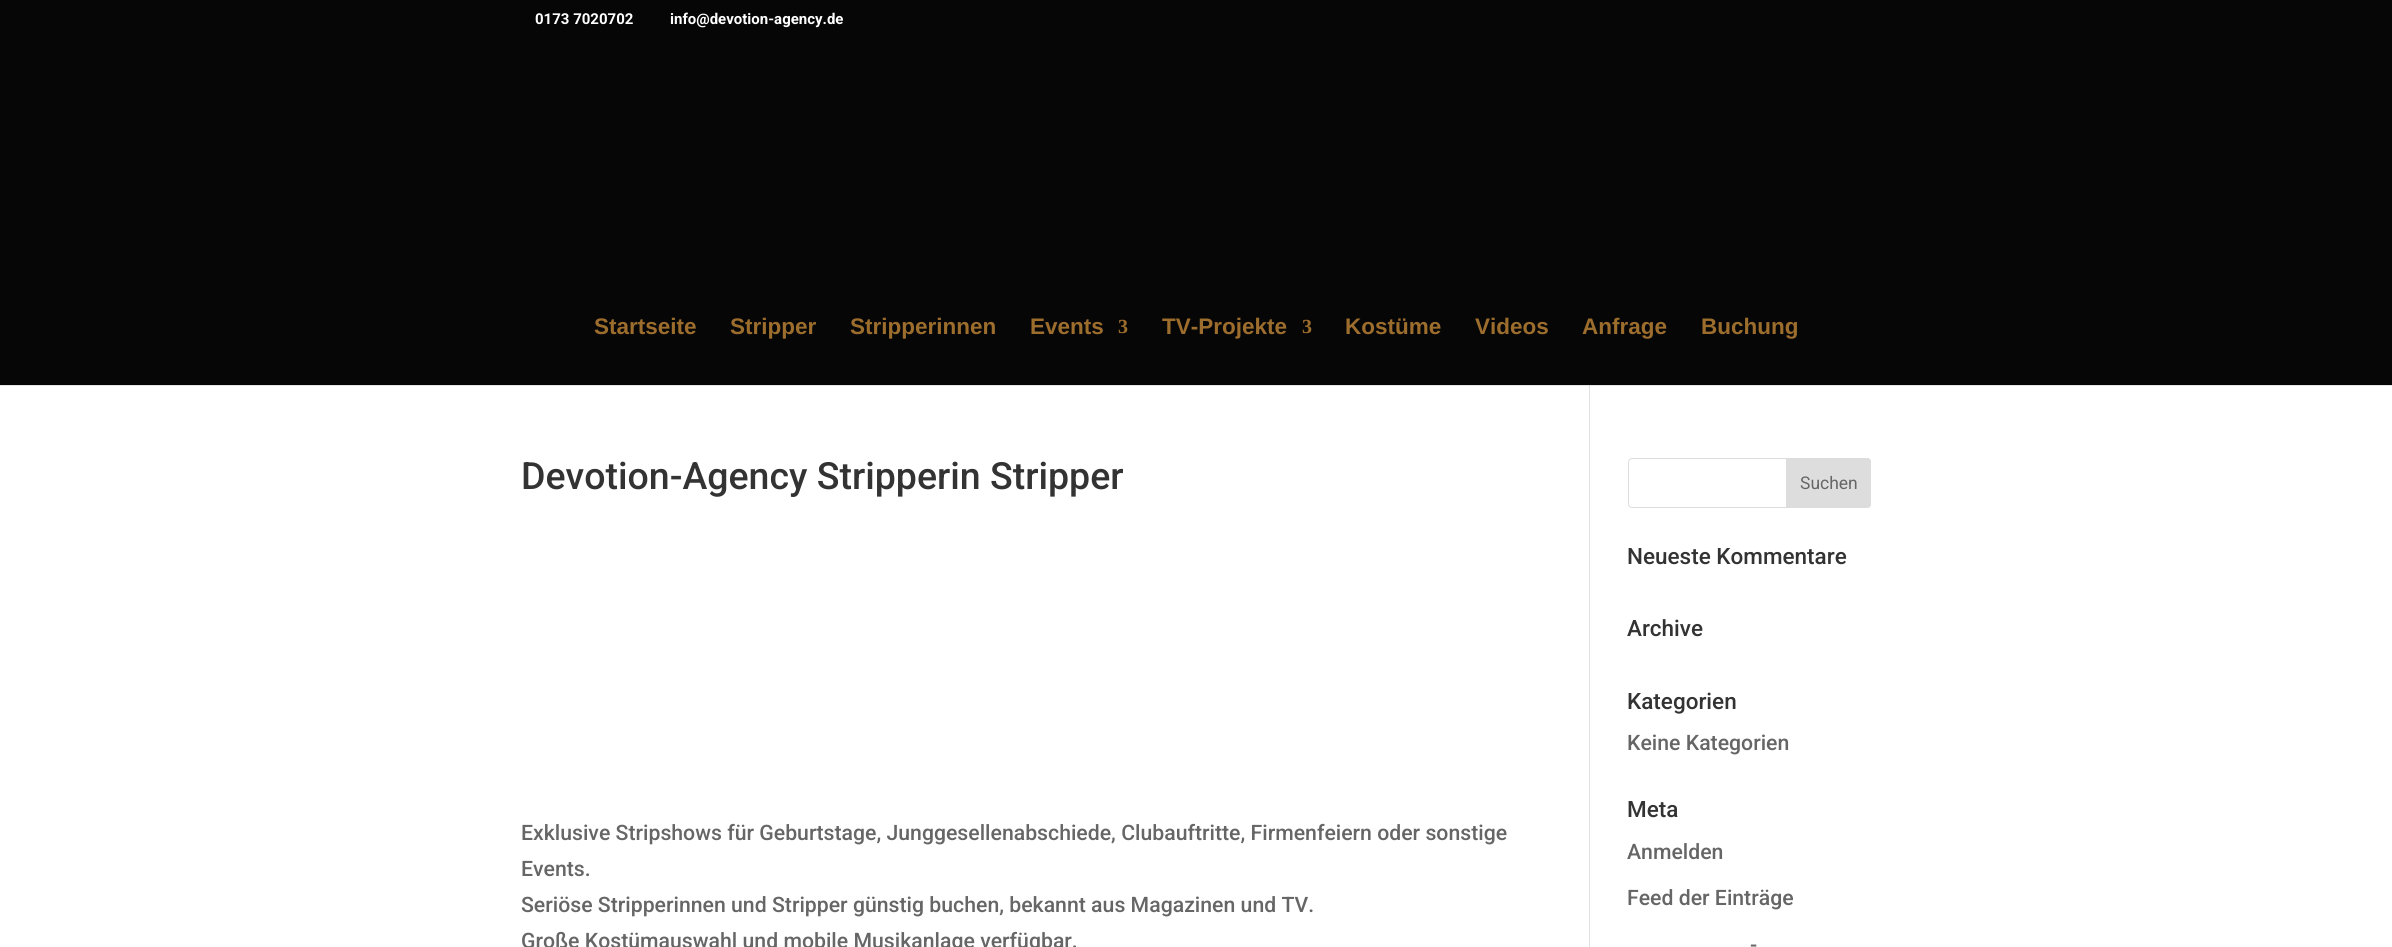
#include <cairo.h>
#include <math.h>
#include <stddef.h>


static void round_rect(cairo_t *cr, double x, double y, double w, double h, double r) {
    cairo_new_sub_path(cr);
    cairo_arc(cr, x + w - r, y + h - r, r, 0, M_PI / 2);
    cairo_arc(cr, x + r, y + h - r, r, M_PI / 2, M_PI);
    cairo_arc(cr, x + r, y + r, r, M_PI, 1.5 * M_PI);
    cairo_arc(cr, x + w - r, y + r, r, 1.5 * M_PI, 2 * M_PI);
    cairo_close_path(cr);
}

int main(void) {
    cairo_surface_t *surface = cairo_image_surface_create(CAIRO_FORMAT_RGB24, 2392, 947);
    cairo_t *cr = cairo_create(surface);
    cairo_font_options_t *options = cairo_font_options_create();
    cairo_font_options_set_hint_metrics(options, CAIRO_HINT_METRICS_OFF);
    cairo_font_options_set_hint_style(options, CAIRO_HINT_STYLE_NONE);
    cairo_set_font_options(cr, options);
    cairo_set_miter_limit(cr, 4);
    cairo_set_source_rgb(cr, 0.027, 0.027, 0.027);
    cairo_paint(cr);
    cairo_select_font_face(cr, "Roboto", CAIRO_FONT_SLANT_NORMAL, CAIRO_FONT_WEIGHT_BOLD);
    cairo_set_font_size(cr, 15);
    cairo_set_source_rgb(cr, 1, 1, 1);
    cairo_move_to(cr, 535, 24);
    cairo_show_text(cr, "0173 7020702");
    cairo_move_to(cr, 670, 24);
    cairo_show_text(cr, "info@devotion-agency.de");
    cairo_rectangle(cr, 0, 385, 2392, 562);
    cairo_fill(cr);
    cairo_set_source_rgb(cr, 0.886, 0.886, 0.886);
    cairo_rectangle(cr, 1589, 385, 1, 562);
    cairo_fill(cr);
    cairo_set_source_rgba(cr, 0, 0, 0, 0.1);
    cairo_new_path(cr);
    cairo_move_to(cr, 0, 385);
    cairo_line_to(cr, 0, 386);
    cairo_line_to(cr, 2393, 386);
    cairo_line_to(cr, 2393, 39);
    cairo_line_to(cr, 2392, 39);
    cairo_line_to(cr, 2392, 385);
    cairo_close_path(cr);
    cairo_fill(cr);
    cairo_select_font_face(cr, "Liberation Sans", CAIRO_FONT_SLANT_NORMAL, CAIRO_FONT_WEIGHT_BOLD);
    cairo_set_font_size(cr, 22.5);
    cairo_set_source_rgb(cr, 0.612, 0.427, 0.173);
    cairo_move_to(cr, 594, 334);
    cairo_show_text(cr, "Startseite");
    cairo_move_to(cr, 730, 334);
    cairo_show_text(cr, "Stripper");
    cairo_move_to(cr, 850, 334);
    cairo_show_text(cr, "Stripperinnen");
    cairo_move_to(cr, 1030, 334);
    cairo_show_text(cr, "Events");
    cairo_select_font_face(cr, "Liberation Serif", CAIRO_FONT_SLANT_NORMAL, CAIRO_FONT_WEIGHT_BOLD);
    cairo_set_font_size(cr, 20);
    cairo_move_to(cr, 1118, 333);
    cairo_show_text(cr, "3");
    cairo_select_font_face(cr, "Liberation Sans", CAIRO_FONT_SLANT_NORMAL, CAIRO_FONT_WEIGHT_BOLD);
    cairo_set_font_size(cr, 22.5);
    cairo_move_to(cr, 1162, 334);
    cairo_show_text(cr, "TV-Projekte");
    cairo_select_font_face(cr, "Liberation Serif", CAIRO_FONT_SLANT_NORMAL, CAIRO_FONT_WEIGHT_BOLD);
    cairo_set_font_size(cr, 20);
    cairo_move_to(cr, 1302, 333);
    cairo_show_text(cr, "3");
    cairo_select_font_face(cr, "Liberation Sans", CAIRO_FONT_SLANT_NORMAL, CAIRO_FONT_WEIGHT_BOLD);
    cairo_set_font_size(cr, 22.5);
    cairo_move_to(cr, 1345, 334);
    cairo_show_text(cr, "Kostüme");
    cairo_move_to(cr, 1475, 334);
    cairo_show_text(cr, "Videos");
    cairo_move_to(cr, 1582, 334);
    cairo_show_text(cr, "Anfrage");
    cairo_move_to(cr, 1701, 334);
    cairo_show_text(cr, "Buchung");
    cairo_select_font_face(cr, "Roboto Medium", CAIRO_FONT_SLANT_NORMAL, CAIRO_FONT_WEIGHT_NORMAL);
    cairo_set_font_size(cr, 37.5);
    cairo_set_source_rgb(cr, 0.2, 0.2, 0.2);
    cairo_move_to(cr, 521, 489);
    cairo_show_text(cr, "Devotion-Agency Stripperin Stripper");
    cairo_set_font_size(cr, 21.25);
    cairo_set_source_rgb(cr, 0.4, 0.4, 0.4);
    cairo_move_to(cr, 521, 840);
    cairo_show_text(cr, "Exklusive Stripshows für Geburtstage, Junggesellenabschiede, Clubauftritte, Firmenfeiern oder sonstige");
    cairo_move_to(cr, 521, 876);
    cairo_show_text(cr, "Events.");
    cairo_move_to(cr, 521, 912);
    cairo_show_text(cr, "Seriöse Stripperinnen und Stripper günstig buchen, bekannt aus Magazinen und TV.");
    cairo_move_to(cr, 521, 948);
    cairo_show_text(cr, "Große Kostümauswahl und mobile Musikanlage verfügbar.");
    round_rect(cr, 1628.5, 458.5, 242, 49, 3.5);
    cairo_set_source_rgb(cr, 0.867, 0.867, 0.867);
    cairo_set_line_width(cr, 1);
    cairo_stroke(cr);
    cairo_new_path(cr);
    cairo_move_to(cr, 1786.5, 458.5);
    cairo_line_to(cr, 1867, 458.5);
    cairo_curve_to(cr, 1869, 458.5, 1870.5, 460, 1870.5, 462);
    cairo_line_to(cr, 1870.5, 504);
    cairo_curve_to(cr, 1870.5, 506, 1869, 507.5, 1867, 507.5);
    cairo_line_to(cr, 1786.5, 507.5);
    cairo_close_path(cr);
    cairo_fill_preserve(cr);
    cairo_stroke(cr);
    cairo_select_font_face(cr, "Roboto", CAIRO_FONT_SLANT_NORMAL, CAIRO_FONT_WEIGHT_NORMAL);
    cairo_set_font_size(cr, 17.5);
    cairo_set_source_rgb(cr, 0.4, 0.4, 0.4);
    cairo_move_to(cr, 1800, 489);
    cairo_show_text(cr, "Suchen");
    cairo_select_font_face(cr, "Roboto Medium", CAIRO_FONT_SLANT_NORMAL, CAIRO_FONT_WEIGHT_NORMAL);
    cairo_set_font_size(cr, 22.5);
    cairo_set_source_rgb(cr, 0.2, 0.2, 0.2);
    cairo_move_to(cr, 1627, 564);
    cairo_show_text(cr, "Neueste Kommentare");
    cairo_move_to(cr, 1627, 636);
    cairo_show_text(cr, "Archive");
    cairo_move_to(cr, 1627, 709);
    cairo_show_text(cr, "Kategorien");
    cairo_set_font_size(cr, 21.25);
    cairo_set_source_rgb(cr, 0.4, 0.4, 0.4);
    cairo_move_to(cr, 1627, 750);
    cairo_show_text(cr, "Keine Kategorien");
    cairo_set_font_size(cr, 22.5);
    cairo_set_source_rgb(cr, 0.2, 0.2, 0.2);
    cairo_move_to(cr, 1627, 817);
    cairo_show_text(cr, "Meta");
    cairo_set_font_size(cr, 21.25);
    cairo_set_source_rgb(cr, 0.4, 0.4, 0.4);
    cairo_move_to(cr, 1627, 859);
    cairo_show_text(cr, "Anmelden");
    cairo_move_to(cr, 1627, 905);
    cairo_show_text(cr, "Feed der Einträge");
    cairo_move_to(cr, 1750, 952);
    cairo_show_text(cr, "-");
    cairo_surface_write_to_png(surface, "page.png");
    cairo_font_options_destroy(options);
    cairo_destroy(cr);
    cairo_surface_destroy(surface);
    return 0;
}
